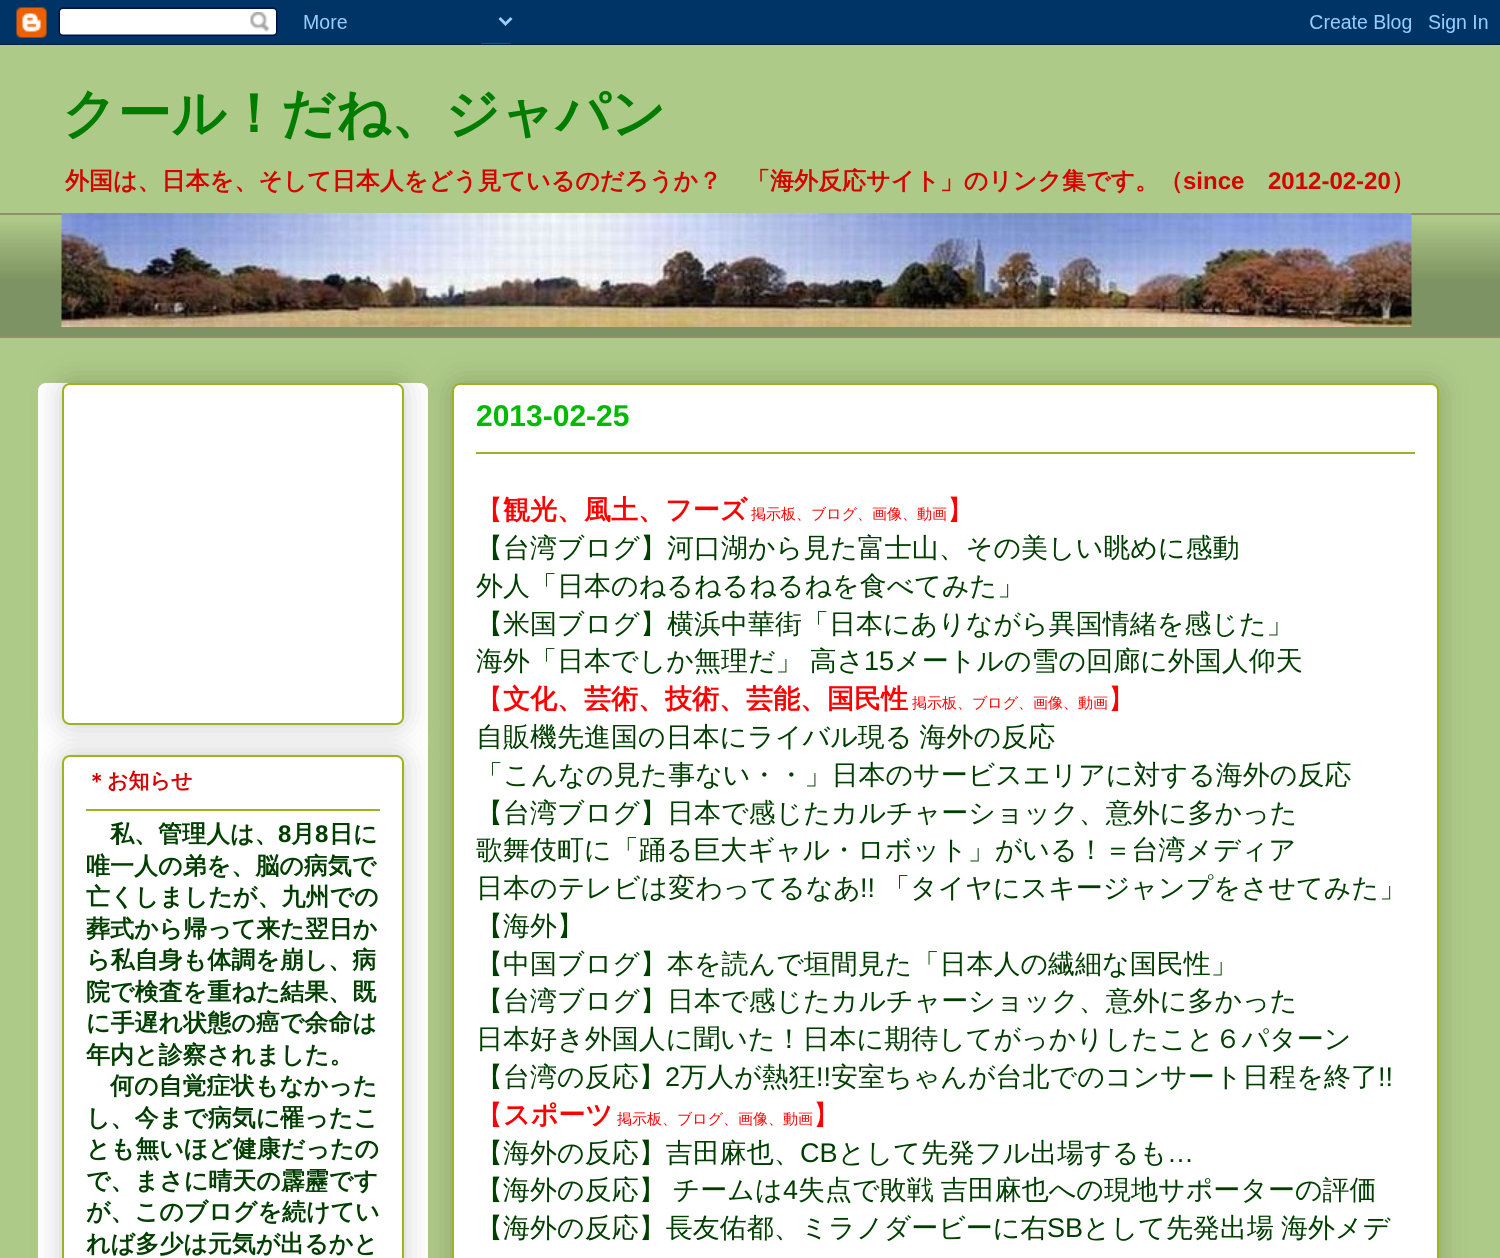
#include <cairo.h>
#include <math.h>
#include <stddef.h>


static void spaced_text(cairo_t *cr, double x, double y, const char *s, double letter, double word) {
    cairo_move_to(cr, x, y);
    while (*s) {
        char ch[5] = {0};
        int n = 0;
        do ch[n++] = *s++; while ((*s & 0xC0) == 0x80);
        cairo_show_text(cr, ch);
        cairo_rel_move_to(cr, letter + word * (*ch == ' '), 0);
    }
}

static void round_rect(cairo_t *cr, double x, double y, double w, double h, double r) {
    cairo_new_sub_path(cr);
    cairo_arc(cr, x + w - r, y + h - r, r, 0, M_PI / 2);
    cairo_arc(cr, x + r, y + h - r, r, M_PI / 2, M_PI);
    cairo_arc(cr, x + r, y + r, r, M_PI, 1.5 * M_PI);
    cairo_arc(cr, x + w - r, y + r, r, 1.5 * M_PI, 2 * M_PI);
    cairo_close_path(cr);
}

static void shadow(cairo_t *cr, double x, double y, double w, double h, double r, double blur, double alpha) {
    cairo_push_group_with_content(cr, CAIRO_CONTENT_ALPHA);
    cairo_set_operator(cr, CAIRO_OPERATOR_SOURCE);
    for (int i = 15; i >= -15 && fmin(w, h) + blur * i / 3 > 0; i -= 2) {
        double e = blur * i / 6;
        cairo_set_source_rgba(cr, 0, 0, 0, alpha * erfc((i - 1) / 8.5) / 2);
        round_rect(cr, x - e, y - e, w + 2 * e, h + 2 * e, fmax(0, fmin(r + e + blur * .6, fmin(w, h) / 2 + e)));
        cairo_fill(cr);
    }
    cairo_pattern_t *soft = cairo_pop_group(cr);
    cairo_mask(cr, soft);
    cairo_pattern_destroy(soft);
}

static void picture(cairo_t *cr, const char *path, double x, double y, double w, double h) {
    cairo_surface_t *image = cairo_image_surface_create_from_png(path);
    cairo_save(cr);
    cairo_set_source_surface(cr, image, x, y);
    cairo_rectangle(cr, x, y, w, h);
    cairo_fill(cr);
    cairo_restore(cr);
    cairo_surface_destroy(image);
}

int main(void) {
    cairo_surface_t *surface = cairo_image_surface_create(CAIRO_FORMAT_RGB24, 1500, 1258);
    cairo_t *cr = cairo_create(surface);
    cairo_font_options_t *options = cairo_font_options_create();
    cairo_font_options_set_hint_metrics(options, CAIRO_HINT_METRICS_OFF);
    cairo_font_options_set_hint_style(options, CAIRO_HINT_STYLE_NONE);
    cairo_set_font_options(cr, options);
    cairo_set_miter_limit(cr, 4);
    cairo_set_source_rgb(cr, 0.682, 0.792, 0.533);
    cairo_paint(cr);
    picture(cr, "img1.png", 0, 0, 1500, 45);
    cairo_select_font_face(cr, "WenQuanYi Zen Hei", CAIRO_FONT_SLANT_NORMAL, CAIRO_FONT_WEIGHT_BOLD);
    cairo_set_font_size(cr, 54);
    cairo_set_source_rgb(cr, 0, 0.49, 0);
    cairo_move_to(cr, 62, 132);
    cairo_show_text(cr, "クール！だね、ジャパン");
    cairo_set_font_size(cr, 24);
    cairo_set_source_rgb(cr, 0.835, 0.012, 0);
    cairo_move_to(cr, 65, 189);
    cairo_show_text(cr, "外国は、日本を、そして日本人をどう見ているのだろうか？　「海外反応サイト」のリンク集です。（");
    cairo_select_font_face(cr, "Liberation Sans", CAIRO_FONT_SLANT_NORMAL, CAIRO_FONT_WEIGHT_BOLD);
    cairo_move_to(cr, 1183, 189);
    cairo_show_text(cr, "since");
    cairo_move_to(cr, 1268, 189);
    cairo_show_text(cr, "2012-02-20");
    cairo_select_font_face(cr, "WenQuanYi Zen Hei", CAIRO_FONT_SLANT_NORMAL, CAIRO_FONT_WEIGHT_BOLD);
    cairo_move_to(cr, 1391, 189);
    cairo_show_text(cr, "）");
    picture(cr, "img2.png", 0, 222, 1500, 114);
    cairo_set_source_rgb(cr, 0.565, 0.561, 0.416);
    cairo_rectangle(cr, 0, 213, 1500, 2);
    cairo_fill(cr);
    picture(cr, "img3.png", 61, 213, 1351, 114);
    cairo_rectangle(cr, 0, 336, 1500, 2);
    cairo_fill(cr);
    cairo_set_source_rgb(cr, 0, 0, 0);
    shadow(cr, 452, 383, 987, 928, 8, 15, 0.2);
    cairo_set_source_rgb(cr, 1, 1, 1);
    round_rect(cr, 38, 383, 390, 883, 8);
    cairo_fill(cr);
    cairo_set_source_rgb(cr, 0, 0, 0);
    shadow(cr, 62, 383, 342, 342, 8, 15, 0.2);
    cairo_set_source_rgb(cr, 1, 1, 1);
    round_rect(cr, 63, 384, 340, 340, 7);
    cairo_fill_preserve(cr);
    cairo_set_source_rgb(cr, 0.627, 0.694, 0.133);
    cairo_stroke(cr);
    cairo_set_source_rgb(cr, 0, 0, 0);
    shadow(cr, 62, 755, 342, 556, 8, 15, 0.2);
    cairo_set_source_rgb(cr, 1, 1, 1);
    round_rect(cr, 63, 756, 340, 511, 7);
    cairo_fill_preserve(cr);
    cairo_set_source_rgb(cr, 0.627, 0.694, 0.133);
    cairo_stroke(cr);
    cairo_set_font_size(cr, 21);
    cairo_set_source_rgb(cr, 0.835, 0.012, 0);
    cairo_move_to(cr, 86, 788);
    cairo_show_text(cr, "＊お知らせ");
    cairo_set_source_rgb(cr, 0.627, 0.694, 0.133);
    cairo_rectangle(cr, 86, 809, 294, 2);
    cairo_fill(cr);
    cairo_set_font_size(cr, 24);
    cairo_set_source_rgb(cr, 0, 0.243, 0);
    cairo_move_to(cr, 110, 842);
    cairo_show_text(cr, "私、管理人は、");
    cairo_select_font_face(cr, "Liberation Sans", CAIRO_FONT_SLANT_NORMAL, CAIRO_FONT_WEIGHT_BOLD);
    cairo_move_to(cr, 278, 842);
    cairo_show_text(cr, "8");
    cairo_select_font_face(cr, "WenQuanYi Zen Hei", CAIRO_FONT_SLANT_NORMAL, CAIRO_FONT_WEIGHT_BOLD);
    cairo_move_to(cr, 291, 842);
    cairo_show_text(cr, "月");
    cairo_select_font_face(cr, "Liberation Sans", CAIRO_FONT_SLANT_NORMAL, CAIRO_FONT_WEIGHT_BOLD);
    cairo_move_to(cr, 315, 842);
    cairo_show_text(cr, "8");
    cairo_select_font_face(cr, "WenQuanYi Zen Hei", CAIRO_FONT_SLANT_NORMAL, CAIRO_FONT_WEIGHT_BOLD);
    cairo_move_to(cr, 329, 842);
    cairo_show_text(cr, "日に");
    cairo_move_to(cr, 86, 874);
    cairo_show_text(cr, "唯一人の弟を、脳の病気で");
    cairo_move_to(cr, 86, 905);
    cairo_show_text(cr, "亡くしましたが、九州での");
    cairo_move_to(cr, 86, 937);
    cairo_show_text(cr, "葬式から帰って来た翌日か");
    cairo_move_to(cr, 86, 968);
    cairo_show_text(cr, "ら私自身も体調を崩し、病");
    cairo_move_to(cr, 86, 1000);
    cairo_show_text(cr, "院で検査を重ねた結果、既");
    cairo_move_to(cr, 86, 1031);
    cairo_show_text(cr, "に手遅れ状態の癌で余命は");
    cairo_move_to(cr, 86, 1063);
    cairo_show_text(cr, "年内と診察されました。");
    cairo_move_to(cr, 110, 1094);
    cairo_show_text(cr, "何の自覚症状もなかった");
    cairo_move_to(cr, 86, 1126);
    cairo_show_text(cr, "し、今まで病気に罹ったこ");
    cairo_move_to(cr, 86, 1157);
    cairo_show_text(cr, "とも無いほど健康だったの");
    cairo_move_to(cr, 86, 1189);
    cairo_show_text(cr, "で、まさに晴天の霹靂です");
    cairo_move_to(cr, 86, 1220);
    cairo_show_text(cr, "が、このブログを続けてい");
    cairo_move_to(cr, 86, 1252);
    cairo_show_text(cr, "れば多少は元気が出るかと");
    cairo_set_source_rgb(cr, 1, 1, 1);
    round_rect(cr, 453, 384, 985, 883, 7);
    cairo_fill_preserve(cr);
    cairo_set_source_rgb(cr, 0.627, 0.694, 0.133);
    cairo_stroke(cr);
    cairo_select_font_face(cr, "Liberation Sans", CAIRO_FONT_SLANT_NORMAL, CAIRO_FONT_WEIGHT_BOLD);
    cairo_set_font_size(cr, 30);
    cairo_set_source_rgb(cr, 0, 0.733, 0);
    cairo_move_to(cr, 476, 426);
    cairo_show_text(cr, "2013-02-25");
    cairo_set_source_rgb(cr, 0.627, 0.694, 0.133);
    cairo_rectangle(cr, 476, 452, 939, 2);
    cairo_fill(cr);
    cairo_select_font_face(cr, "WenQuanYi Zen Hei Medium", CAIRO_FONT_SLANT_NORMAL, CAIRO_FONT_WEIGHT_NORMAL);
    cairo_set_font_size(cr, 27);
    cairo_set_source_rgb(cr, 1, 0, 0);
    cairo_move_to(cr, 476, 519);
    cairo_show_text(cr, "【");
    cairo_select_font_face(cr, "WenQuanYi Zen Hei", CAIRO_FONT_SLANT_NORMAL, CAIRO_FONT_WEIGHT_BOLD);
    cairo_move_to(cr, 503, 519);
    cairo_show_text(cr, "観光、風土、フーズ");
    cairo_select_font_face(cr, "WenQuanYi Zen Hei Medium", CAIRO_FONT_SLANT_NORMAL, CAIRO_FONT_WEIGHT_NORMAL);
    cairo_set_font_size(cr, 15);
    cairo_move_to(cr, 751, 519);
    cairo_show_text(cr, "掲示板、ブログ、画像、動画");
    cairo_set_font_size(cr, 27);
    cairo_move_to(cr, 947, 519);
    cairo_show_text(cr, "】");
    cairo_set_source_rgb(cr, 0, 0.243, 0);
    cairo_move_to(cr, 476, 557);
    cairo_show_text(cr, "【台湾ブログ】河口湖から見た富士山、その美しい眺めに感動");
    cairo_move_to(cr, 476, 595);
    cairo_show_text(cr, "外人「日本のねるねるねるねを食べてみた」");
    cairo_move_to(cr, 476, 633);
    cairo_show_text(cr, "【米国ブログ】横浜中華街「日本にありながら異国情緒を感じた」");
    spaced_text(cr, 476, 670, "海外「日本でしか無理だ」 高さ", 0, -1);
    cairo_select_font_face(cr, "Liberation Sans", CAIRO_FONT_SLANT_NORMAL, CAIRO_FONT_WEIGHT_NORMAL);
    cairo_move_to(cr, 864, 670);
    cairo_show_text(cr, "15");
    cairo_select_font_face(cr, "WenQuanYi Zen Hei Medium", CAIRO_FONT_SLANT_NORMAL, CAIRO_FONT_WEIGHT_NORMAL);
    cairo_move_to(cr, 894, 670);
    cairo_show_text(cr, "メートルの雪の回廊に外国人仰天");
    cairo_set_source_rgb(cr, 1, 0, 0);
    cairo_move_to(cr, 476, 708);
    cairo_show_text(cr, "【");
    cairo_select_font_face(cr, "WenQuanYi Zen Hei", CAIRO_FONT_SLANT_NORMAL, CAIRO_FONT_WEIGHT_BOLD);
    cairo_move_to(cr, 503, 708);
    cairo_show_text(cr, "文化、芸術、技術、芸能、国民性");
    cairo_select_font_face(cr, "WenQuanYi Zen Hei Medium", CAIRO_FONT_SLANT_NORMAL, CAIRO_FONT_WEIGHT_NORMAL);
    cairo_set_font_size(cr, 15);
    cairo_move_to(cr, 912, 708);
    cairo_show_text(cr, "掲示板、ブログ、画像、動画");
    cairo_set_font_size(cr, 27);
    cairo_move_to(cr, 1108, 708);
    cairo_show_text(cr, "】");
    cairo_set_source_rgb(cr, 0, 0.243, 0);
    spaced_text(cr, 476, 746, "自販機先進国の日本にライバル現る 海外の反応", 0, -1);
    cairo_move_to(cr, 476, 784);
    cairo_show_text(cr, "「こんなの見た事ない・・」日本のサービスエリアに対する海外の反応");
    cairo_move_to(cr, 476, 822);
    cairo_show_text(cr, "【台湾ブログ】日本で感じたカルチャーショック、意外に多かった");
    cairo_move_to(cr, 476, 859);
    cairo_show_text(cr, "歌舞伎町に「踊る巨大ギャル・ロボット」がいる！＝台湾メディア");
    cairo_move_to(cr, 476, 897);
    cairo_show_text(cr, "日本のテレビは変わってるなあ");
    cairo_select_font_face(cr, "Liberation Sans", CAIRO_FONT_SLANT_NORMAL, CAIRO_FONT_WEIGHT_NORMAL);
    cairo_move_to(cr, 860, 897);
    cairo_show_text(cr, "!!");
    cairo_select_font_face(cr, "WenQuanYi Zen Hei Medium", CAIRO_FONT_SLANT_NORMAL, CAIRO_FONT_WEIGHT_NORMAL);
    cairo_move_to(cr, 883, 897);
    cairo_show_text(cr, "「タイヤにスキージャンプをさせてみた」");
    cairo_move_to(cr, 476, 935);
    cairo_show_text(cr, "【海外】");
    cairo_move_to(cr, 476, 973);
    cairo_show_text(cr, "【中国ブログ】本を読んで垣間見た「日本人の繊細な国民性」");
    cairo_move_to(cr, 476, 1010);
    cairo_show_text(cr, "【台湾ブログ】日本で感じたカルチャーショック、意外に多かった");
    cairo_move_to(cr, 476, 1048);
    cairo_show_text(cr, "日本好き外国人に聞いた！日本に期待してがっかりしたこと６パターン");
    cairo_move_to(cr, 476, 1086);
    cairo_show_text(cr, "【台湾の反応】");
    cairo_select_font_face(cr, "Liberation Sans", CAIRO_FONT_SLANT_NORMAL, CAIRO_FONT_WEIGHT_NORMAL);
    cairo_move_to(cr, 665, 1086);
    cairo_show_text(cr, "2");
    cairo_select_font_face(cr, "WenQuanYi Zen Hei Medium", CAIRO_FONT_SLANT_NORMAL, CAIRO_FONT_WEIGHT_NORMAL);
    cairo_move_to(cr, 680, 1086);
    cairo_show_text(cr, "万人が熱狂");
    cairo_select_font_face(cr, "Liberation Sans", CAIRO_FONT_SLANT_NORMAL, CAIRO_FONT_WEIGHT_NORMAL);
    cairo_move_to(cr, 816, 1086);
    cairo_show_text(cr, "!!");
    cairo_select_font_face(cr, "WenQuanYi Zen Hei Medium", CAIRO_FONT_SLANT_NORMAL, CAIRO_FONT_WEIGHT_NORMAL);
    cairo_move_to(cr, 831, 1086);
    cairo_show_text(cr, "安室ちゃんが台北でのコンサート日程を終了");
    cairo_select_font_face(cr, "Liberation Sans", CAIRO_FONT_SLANT_NORMAL, CAIRO_FONT_WEIGHT_NORMAL);
    cairo_move_to(cr, 1378, 1086);
    cairo_show_text(cr, "!!");
    cairo_select_font_face(cr, "WenQuanYi Zen Hei Medium", CAIRO_FONT_SLANT_NORMAL, CAIRO_FONT_WEIGHT_NORMAL);
    cairo_set_source_rgb(cr, 1, 0, 0);
    cairo_move_to(cr, 476, 1124);
    cairo_show_text(cr, "【");
    cairo_select_font_face(cr, "WenQuanYi Zen Hei", CAIRO_FONT_SLANT_NORMAL, CAIRO_FONT_WEIGHT_BOLD);
    cairo_move_to(cr, 503, 1124);
    cairo_show_text(cr, "スポーツ");
    cairo_select_font_face(cr, "WenQuanYi Zen Hei Medium", CAIRO_FONT_SLANT_NORMAL, CAIRO_FONT_WEIGHT_NORMAL);
    cairo_set_font_size(cr, 15);
    cairo_move_to(cr, 617, 1124);
    cairo_show_text(cr, "掲示板、ブログ、画像、動画");
    cairo_set_font_size(cr, 27);
    cairo_move_to(cr, 813, 1124);
    cairo_show_text(cr, "】");
    cairo_set_source_rgb(cr, 0, 0.243, 0);
    cairo_move_to(cr, 476, 1162);
    cairo_show_text(cr, "【海外の反応】吉田麻也、");
    cairo_select_font_face(cr, "Liberation Sans", CAIRO_FONT_SLANT_NORMAL, CAIRO_FONT_WEIGHT_NORMAL);
    cairo_move_to(cr, 800, 1162);
    cairo_show_text(cr, "CB");
    cairo_select_font_face(cr, "WenQuanYi Zen Hei Medium", CAIRO_FONT_SLANT_NORMAL, CAIRO_FONT_WEIGHT_NORMAL);
    cairo_move_to(cr, 838, 1162);
    cairo_show_text(cr, "として先発フル出場するも");
    cairo_select_font_face(cr, "Liberation Sans", CAIRO_FONT_SLANT_NORMAL, CAIRO_FONT_WEIGHT_NORMAL);
    cairo_move_to(cr, 1167, 1162);
    cairo_show_text(cr, "…");
    cairo_select_font_face(cr, "WenQuanYi Zen Hei Medium", CAIRO_FONT_SLANT_NORMAL, CAIRO_FONT_WEIGHT_NORMAL);
    spaced_text(cr, 476, 1199, "【海外の反応】 チームは", 0, -1);
    cairo_select_font_face(cr, "Liberation Sans", CAIRO_FONT_SLANT_NORMAL, CAIRO_FONT_WEIGHT_NORMAL);
    cairo_move_to(cr, 783, 1199);
    cairo_show_text(cr, "4");
    cairo_select_font_face(cr, "WenQuanYi Zen Hei Medium", CAIRO_FONT_SLANT_NORMAL, CAIRO_FONT_WEIGHT_NORMAL);
    spaced_text(cr, 798, 1199, "失点で敗戦 吉田麻也への現地サポーターの評価", 0, -1);
    cairo_move_to(cr, 476, 1237);
    cairo_show_text(cr, "【海外の反応】長友佑都、ミラノダービーに右");
    cairo_select_font_face(cr, "Liberation Sans", CAIRO_FONT_SLANT_NORMAL, CAIRO_FONT_WEIGHT_NORMAL);
    cairo_move_to(cr, 1047, 1237);
    cairo_show_text(cr, "SB");
    cairo_select_font_face(cr, "WenQuanYi Zen Hei Medium", CAIRO_FONT_SLANT_NORMAL, CAIRO_FONT_WEIGHT_NORMAL);
    spaced_text(cr, 1083, 1237, "として先発出場 海外メデ", 0, -1);
    cairo_surface_write_to_png(surface, "page.png");
    cairo_font_options_destroy(options);
    cairo_destroy(cr);
    cairo_surface_destroy(surface);
    return 0;
}
